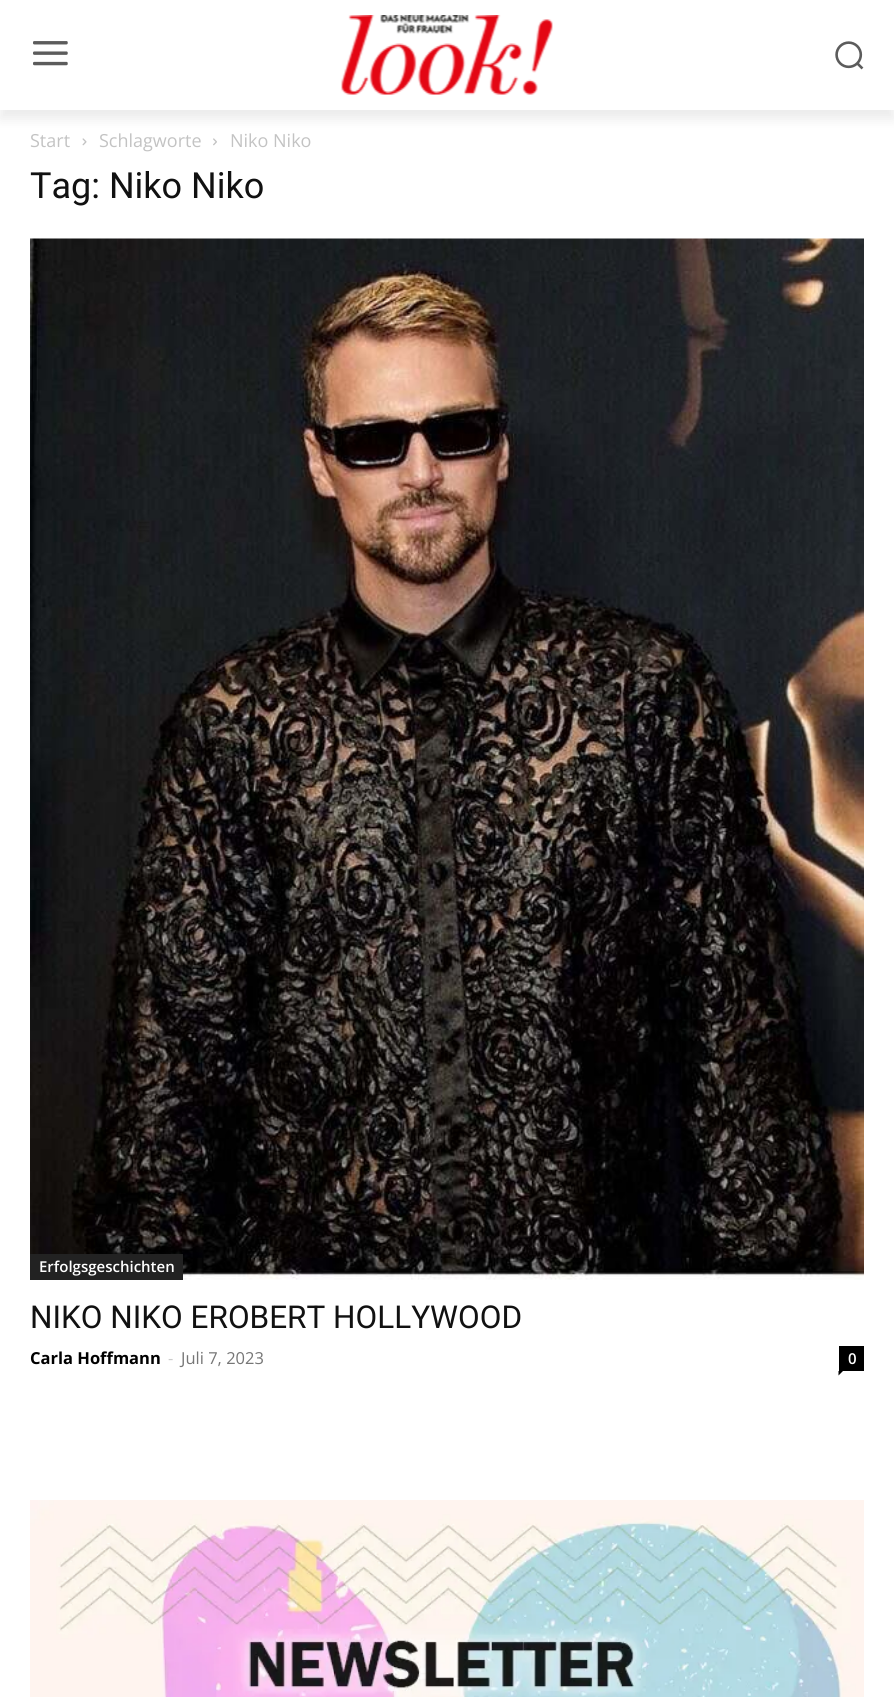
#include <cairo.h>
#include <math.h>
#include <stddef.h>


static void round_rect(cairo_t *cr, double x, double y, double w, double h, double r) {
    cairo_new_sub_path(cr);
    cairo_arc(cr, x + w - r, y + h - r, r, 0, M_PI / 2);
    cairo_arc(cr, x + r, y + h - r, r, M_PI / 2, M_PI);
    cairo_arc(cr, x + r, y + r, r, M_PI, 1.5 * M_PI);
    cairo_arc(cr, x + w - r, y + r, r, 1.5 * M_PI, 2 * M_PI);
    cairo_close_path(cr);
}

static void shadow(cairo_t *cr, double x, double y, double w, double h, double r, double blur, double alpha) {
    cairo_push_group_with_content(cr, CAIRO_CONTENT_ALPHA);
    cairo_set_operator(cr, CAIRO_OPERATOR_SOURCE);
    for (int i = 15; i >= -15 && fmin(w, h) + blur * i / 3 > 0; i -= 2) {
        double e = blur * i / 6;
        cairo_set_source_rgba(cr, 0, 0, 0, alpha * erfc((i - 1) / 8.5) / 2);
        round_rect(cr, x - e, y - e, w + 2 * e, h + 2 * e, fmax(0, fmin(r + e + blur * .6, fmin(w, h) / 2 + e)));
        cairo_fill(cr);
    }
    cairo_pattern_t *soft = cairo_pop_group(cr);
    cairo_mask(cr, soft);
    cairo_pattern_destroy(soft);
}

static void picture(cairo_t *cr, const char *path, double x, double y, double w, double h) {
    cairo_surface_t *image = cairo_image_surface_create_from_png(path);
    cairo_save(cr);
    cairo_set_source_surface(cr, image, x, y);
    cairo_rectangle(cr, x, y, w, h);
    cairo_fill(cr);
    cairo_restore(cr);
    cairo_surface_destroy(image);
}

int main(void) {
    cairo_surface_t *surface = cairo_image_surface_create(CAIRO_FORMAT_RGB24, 894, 1697);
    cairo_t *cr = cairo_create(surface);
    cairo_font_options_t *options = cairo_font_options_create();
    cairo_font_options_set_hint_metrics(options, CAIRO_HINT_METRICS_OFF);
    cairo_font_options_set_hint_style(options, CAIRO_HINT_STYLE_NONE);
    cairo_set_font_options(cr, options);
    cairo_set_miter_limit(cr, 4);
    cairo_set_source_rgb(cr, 1, 1, 1);
    cairo_paint(cr);
    picture(cr, "img1.png", 33, 41, 35, 25);
    picture(cr, "img2.png", 341, 15, 212, 80);
    picture(cr, "img3.png", 835, 41, 29, 29);
    cairo_save(cr);
    cairo_set_fill_rule(cr, CAIRO_FILL_RULE_EVEN_ODD);
    cairo_new_path(cr);
    cairo_move_to(cr, 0, 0);
    cairo_line_to(cr, 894, 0);
    cairo_line_to(cr, 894, 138);
    cairo_line_to(cr, 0, 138);
    cairo_close_path(cr);
    cairo_move_to(cr, 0, 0);
    cairo_line_to(cr, 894, 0);
    cairo_line_to(cr, 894, 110);
    cairo_line_to(cr, 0, 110);
    cairo_close_path(cr);
    cairo_clip(cr);
    cairo_set_source_rgb(cr, 0, 0, 0);
    shadow(cr, 0, 9, 894, 110, 0, 6, 0.08);
    cairo_restore(cr);
    cairo_select_font_face(cr, "Open Sans", CAIRO_FONT_SLANT_NORMAL, CAIRO_FONT_WEIGHT_NORMAL);
    cairo_set_font_size(cr, 18);
    cairo_set_source_rgb(cr, 0.765, 0.765, 0.765);
    cairo_move_to(cr, 30, 147);
    cairo_show_text(cr, "Start");
    picture(cr, "img4.png", 82, 138, 5, 8);
    cairo_move_to(cr, 99, 147);
    cairo_show_text(cr, "Schlagworte");
    picture(cr, "img5.png", 213, 138, 4, 8);
    cairo_move_to(cr, 230, 147);
    cairo_show_text(cr, "Niko Niko");
    cairo_select_font_face(cr, "Roboto", CAIRO_FONT_SLANT_NORMAL, CAIRO_FONT_WEIGHT_NORMAL);
    cairo_set_font_size(cr, 36);
    cairo_set_source_rgb(cr, 0.067, 0.067, 0.067);
    cairo_move_to(cr, 30, 198);
    cairo_show_text(cr, "Tag: Niko Niko");
    picture(cr, "img6.png", 30, 238, 834, 1042);
    cairo_set_source_rgb(cr, 0.133, 0.133, 0.133);
    cairo_rectangle(cr, 30, 1254, 153, 26);
    cairo_fill(cr);
    cairo_select_font_face(cr, "Open Sans SemiBold", CAIRO_FONT_SLANT_NORMAL, CAIRO_FONT_WEIGHT_NORMAL);
    cairo_set_font_size(cr, 15);
    cairo_set_source_rgb(cr, 1, 1, 1);
    cairo_move_to(cr, 39, 1272);
    cairo_show_text(cr, "Erfolgsgeschichten");
    cairo_select_font_face(cr, "Roboto", CAIRO_FONT_SLANT_NORMAL, CAIRO_FONT_WEIGHT_NORMAL);
    cairo_set_font_size(cr, 31.5);
    cairo_set_source_rgb(cr, 0.067, 0.067, 0.067);
    cairo_move_to(cr, 30, 1328);
    cairo_show_text(cr, "NIKO NIKO EROBERT HOLLYWOOD");
    cairo_select_font_face(cr, "Open Sans", CAIRO_FONT_SLANT_NORMAL, CAIRO_FONT_WEIGHT_BOLD);
    cairo_set_font_size(cr, 16.5);
    cairo_set_source_rgb(cr, 0, 0, 0);
    cairo_move_to(cr, 30, 1364);
    cairo_show_text(cr, "Carla Hoffmann");
    cairo_select_font_face(cr, "Open Sans", CAIRO_FONT_SLANT_NORMAL, CAIRO_FONT_WEIGHT_NORMAL);
    cairo_set_source_rgb(cr, 0.8, 0.8, 0.8);
    cairo_move_to(cr, 168, 1364);
    cairo_show_text(cr, "-");
    cairo_set_source_rgb(cr, 0.463, 0.463, 0.463);
    cairo_move_to(cr, 181, 1364);
    cairo_show_text(cr, "Juli 7, 2023");
    cairo_set_source_rgb(cr, 0, 0, 0);
    cairo_rectangle(cr, 839, 1346, 25, 25);
    cairo_fill(cr);
    cairo_select_font_face(cr, "Open Sans SemiBold", CAIRO_FONT_SLANT_NORMAL, CAIRO_FONT_WEIGHT_NORMAL);
    cairo_set_font_size(cr, 15);
    cairo_set_source_rgb(cr, 1, 1, 1);
    cairo_move_to(cr, 848, 1364);
    cairo_show_text(cr, "0");
    cairo_set_source_rgb(cr, 0, 0, 0);
    cairo_new_path(cr);
    cairo_move_to(cr, 838.5, 1371);
    cairo_line_to(cr, 843, 1371);
    cairo_line_to(cr, 838.5, 1375.5);
    cairo_close_path(cr);
    cairo_fill(cr);
    picture(cr, "img7.png", 30, 1500, 834, 197);
    cairo_surface_write_to_png(surface, "page.png");
    cairo_font_options_destroy(options);
    cairo_destroy(cr);
    cairo_surface_destroy(surface);
    return 0;
}
